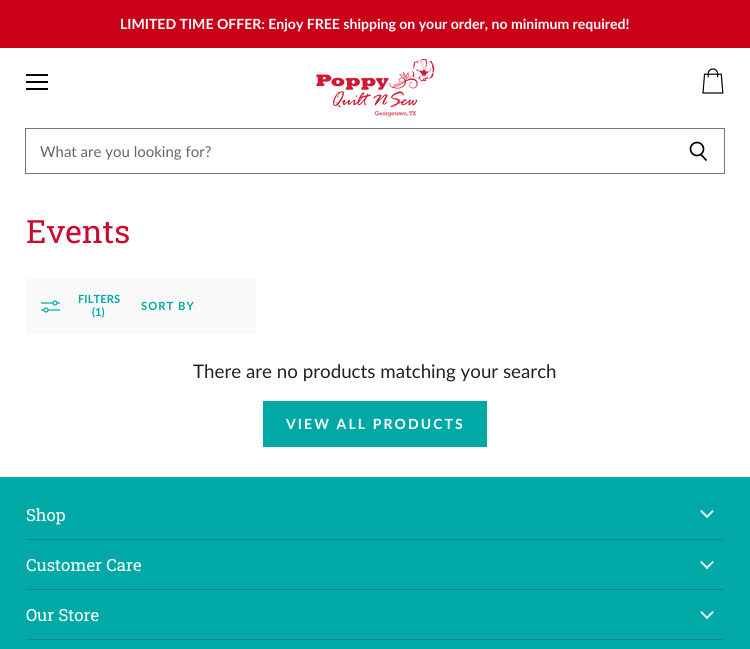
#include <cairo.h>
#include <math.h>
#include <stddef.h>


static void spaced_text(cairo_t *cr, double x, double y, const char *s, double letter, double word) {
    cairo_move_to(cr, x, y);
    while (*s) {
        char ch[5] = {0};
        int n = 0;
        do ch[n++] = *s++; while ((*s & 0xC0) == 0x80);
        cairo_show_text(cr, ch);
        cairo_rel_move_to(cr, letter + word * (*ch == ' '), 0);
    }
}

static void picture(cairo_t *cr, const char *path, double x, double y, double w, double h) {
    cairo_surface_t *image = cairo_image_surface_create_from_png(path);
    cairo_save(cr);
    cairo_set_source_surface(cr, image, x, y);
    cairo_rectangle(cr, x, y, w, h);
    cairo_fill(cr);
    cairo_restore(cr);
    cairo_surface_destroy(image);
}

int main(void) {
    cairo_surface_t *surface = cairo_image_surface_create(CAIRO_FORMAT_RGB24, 750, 649);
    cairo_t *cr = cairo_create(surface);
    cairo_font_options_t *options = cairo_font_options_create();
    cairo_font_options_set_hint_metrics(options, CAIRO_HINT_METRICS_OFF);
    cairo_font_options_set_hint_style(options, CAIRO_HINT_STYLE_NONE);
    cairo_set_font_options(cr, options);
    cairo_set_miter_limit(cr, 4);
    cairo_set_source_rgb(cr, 1, 1, 1);
    cairo_paint(cr);
    cairo_set_source_rgb(cr, 0.792, 0, 0.094);
    cairo_rectangle(cr, 0, 0, 750, 48);
    cairo_fill(cr);
    cairo_select_font_face(cr, "Lato", CAIRO_FONT_SLANT_NORMAL, CAIRO_FONT_WEIGHT_BOLD);
    cairo_set_font_size(cr, 14.05);
    cairo_set_source_rgb(cr, 1, 1, 1);
    cairo_move_to(cr, 120, 29);
    cairo_show_text(cr, "LIMITED TIME OFFER: Enjoy FREE shipping on your order, no minimum required!");
    cairo_set_source_rgb(cr, 0, 0, 0);
    cairo_rectangle(cr, 26, 74, 22, 2);
    cairo_fill(cr);
    cairo_rectangle(cr, 26, 81, 22, 2);
    cairo_fill(cr);
    cairo_rectangle(cr, 26, 88, 22, 2);
    cairo_fill(cr);
    picture(cr, "img1.png", 702, 68, 22, 26);
    picture(cr, "img2.png", 316, 58, 119, 59);
    cairo_set_source_rgb(cr, 0.467, 0.467, 0.467);
    cairo_rectangle(cr, 25, 128, 700, 1);
    cairo_fill(cr);
    cairo_rectangle(cr, 724, 128, 1, 46);
    cairo_fill(cr);
    cairo_rectangle(cr, 25, 173, 700, 1);
    cairo_fill(cr);
    cairo_new_path(cr);
    cairo_move_to(cr, 706.5, 160.5);
    cairo_line_to(cr, 701, 154.5);
    cairo_set_source_rgb(cr, 0, 0, 0);
    cairo_set_line_width(cr, 1.7);
    cairo_stroke(cr);
    cairo_arc(cr, 697, 149, 6.5, 0, 2 * M_PI);
    cairo_stroke(cr);
    cairo_set_source_rgb(cr, 0.467, 0.467, 0.467);
    cairo_rectangle(cr, 25, 128, 1, 46);
    cairo_fill(cr);
    cairo_select_font_face(cr, "Lato", CAIRO_FONT_SLANT_NORMAL, CAIRO_FONT_WEIGHT_NORMAL);
    cairo_set_font_size(cr, 15);
    cairo_set_source_rgb(cr, 0.4, 0.4, 0.4);
    cairo_move_to(cr, 40, 157);
    cairo_show_text(cr, "What are you looking for?");
    cairo_select_font_face(cr, "Roboto Slab", CAIRO_FONT_SLANT_NORMAL, CAIRO_FONT_WEIGHT_NORMAL);
    cairo_set_font_size(cr, 32);
    cairo_set_source_rgb(cr, 0.776, 0.047, 0.188);
    cairo_move_to(cr, 26, 243);
    cairo_show_text(cr, "Events");
    cairo_set_source_rgb(cr, 0.973, 0.973, 0.973);
    cairo_rectangle(cr, 26, 278, 230, 56);
    cairo_fill(cr);
    picture(cr, "img3.png", 41, 300, 19, 13);
    cairo_select_font_face(cr, "Lato", CAIRO_FONT_SLANT_NORMAL, CAIRO_FONT_WEIGHT_BOLD);
    cairo_set_font_size(cr, 11.25);
    cairo_set_source_rgb(cr, 0, 0.663, 0.647);
    cairo_move_to(cr, 78, 303);
    cairo_show_text(cr, "FILTERS");
    cairo_move_to(cr, 92, 316);
    cairo_show_text(cr, "(1)");
    spaced_text(cr, 141, 310, "SORT BY", 1, 0);
    cairo_select_font_face(cr, "Lato", CAIRO_FONT_SLANT_NORMAL, CAIRO_FONT_WEIGHT_NORMAL);
    cairo_set_font_size(cr, 18.75);
    cairo_set_source_rgb(cr, 0.129, 0.129, 0.129);
    cairo_move_to(cr, 193, 378);
    cairo_show_text(cr, "There are no products matching your search");
    cairo_set_source_rgb(cr, 0, 0.663, 0.647);
    cairo_rectangle(cr, 263, 401, 224, 46);
    cairo_fill(cr);
    cairo_select_font_face(cr, "Lato", CAIRO_FONT_SLANT_NORMAL, CAIRO_FONT_WEIGHT_BOLD);
    cairo_set_font_size(cr, 14);
    cairo_set_source_rgb(cr, 1, 1, 1);
    spaced_text(cr, 286, 429, "VIEW ALL PRODUCTS", 2.1, 0);
    cairo_set_source_rgb(cr, 0, 0.663, 0.647);
    cairo_rectangle(cr, 0, 477, 750, 172);
    cairo_fill(cr);
    cairo_set_source_rgb(cr, 0, 0.529, 0.518);
    cairo_rectangle(cr, 26, 539, 698, 1);
    cairo_fill(cr);
    cairo_select_font_face(cr, "Roboto Slab", CAIRO_FONT_SLANT_NORMAL, CAIRO_FONT_WEIGHT_NORMAL);
    cairo_set_font_size(cr, 16.75);
    cairo_set_source_rgb(cr, 1, 1, 1);
    cairo_move_to(cr, 26, 521);
    cairo_show_text(cr, "Shop");
    picture(cr, "img4.png", 700, 510, 14, 8);
    cairo_set_source_rgb(cr, 0, 0.529, 0.518);
    cairo_rectangle(cr, 26, 589, 698, 1);
    cairo_fill(cr);
    cairo_set_source_rgb(cr, 1, 1, 1);
    cairo_move_to(cr, 26, 571);
    cairo_show_text(cr, "Customer Care");
    picture(cr, "img4.png", 700, 561, 14, 8);
    cairo_set_source_rgb(cr, 0, 0.529, 0.518);
    cairo_rectangle(cr, 26, 639, 698, 1);
    cairo_fill(cr);
    cairo_set_source_rgb(cr, 1, 1, 1);
    cairo_move_to(cr, 26, 621);
    cairo_show_text(cr, "Our Store");
    picture(cr, "img4.png", 700, 611, 14, 8);
    cairo_surface_write_to_png(surface, "page.png");
    cairo_font_options_destroy(options);
    cairo_destroy(cr);
    cairo_surface_destroy(surface);
    return 0;
}
